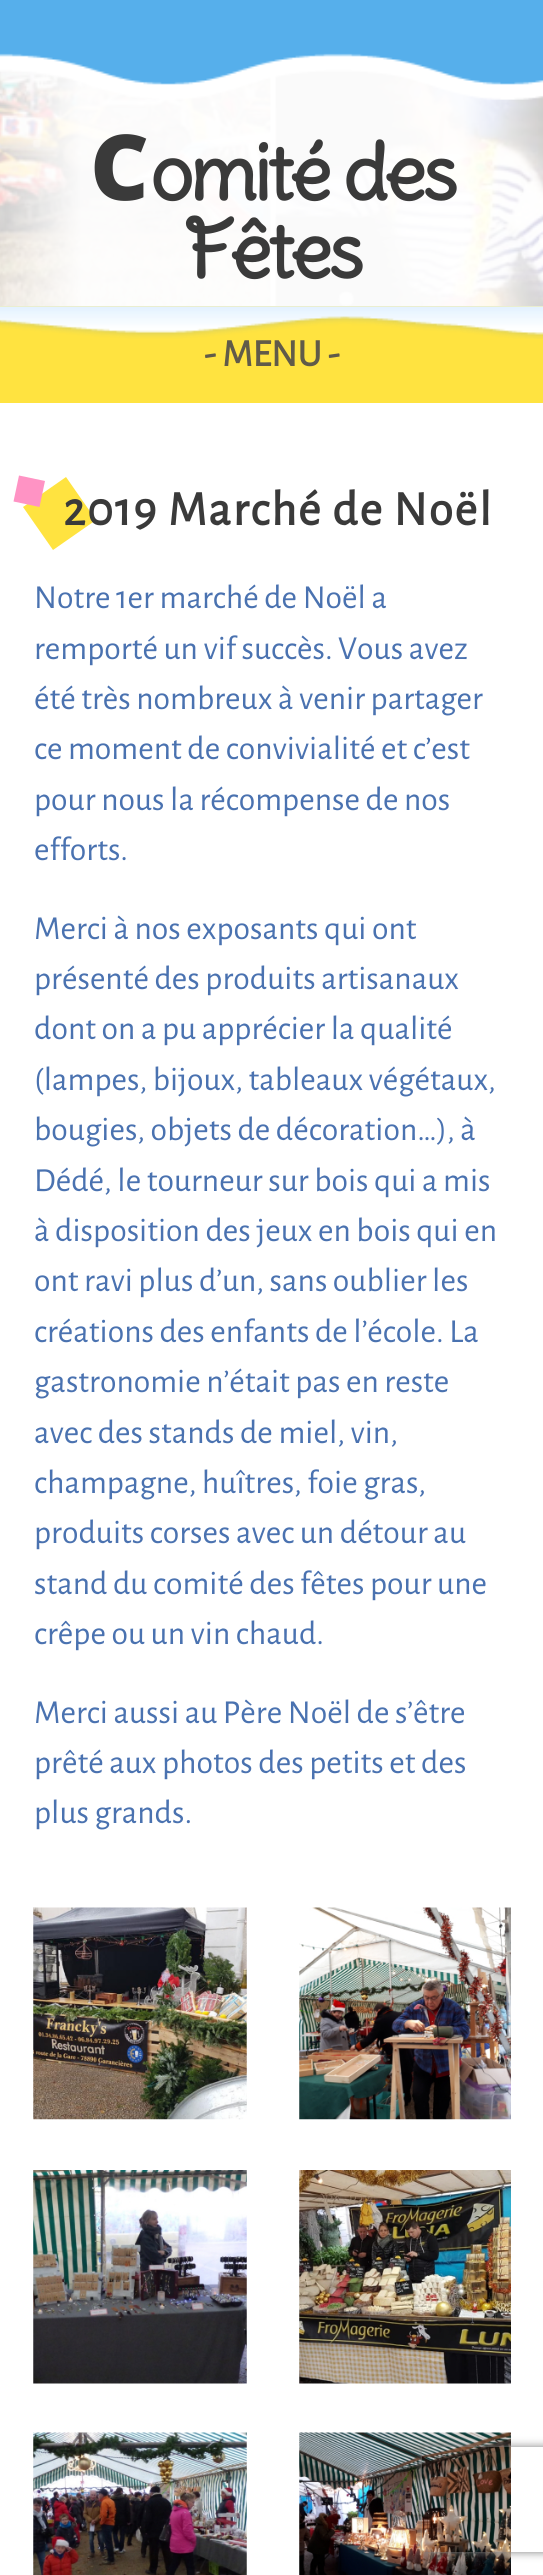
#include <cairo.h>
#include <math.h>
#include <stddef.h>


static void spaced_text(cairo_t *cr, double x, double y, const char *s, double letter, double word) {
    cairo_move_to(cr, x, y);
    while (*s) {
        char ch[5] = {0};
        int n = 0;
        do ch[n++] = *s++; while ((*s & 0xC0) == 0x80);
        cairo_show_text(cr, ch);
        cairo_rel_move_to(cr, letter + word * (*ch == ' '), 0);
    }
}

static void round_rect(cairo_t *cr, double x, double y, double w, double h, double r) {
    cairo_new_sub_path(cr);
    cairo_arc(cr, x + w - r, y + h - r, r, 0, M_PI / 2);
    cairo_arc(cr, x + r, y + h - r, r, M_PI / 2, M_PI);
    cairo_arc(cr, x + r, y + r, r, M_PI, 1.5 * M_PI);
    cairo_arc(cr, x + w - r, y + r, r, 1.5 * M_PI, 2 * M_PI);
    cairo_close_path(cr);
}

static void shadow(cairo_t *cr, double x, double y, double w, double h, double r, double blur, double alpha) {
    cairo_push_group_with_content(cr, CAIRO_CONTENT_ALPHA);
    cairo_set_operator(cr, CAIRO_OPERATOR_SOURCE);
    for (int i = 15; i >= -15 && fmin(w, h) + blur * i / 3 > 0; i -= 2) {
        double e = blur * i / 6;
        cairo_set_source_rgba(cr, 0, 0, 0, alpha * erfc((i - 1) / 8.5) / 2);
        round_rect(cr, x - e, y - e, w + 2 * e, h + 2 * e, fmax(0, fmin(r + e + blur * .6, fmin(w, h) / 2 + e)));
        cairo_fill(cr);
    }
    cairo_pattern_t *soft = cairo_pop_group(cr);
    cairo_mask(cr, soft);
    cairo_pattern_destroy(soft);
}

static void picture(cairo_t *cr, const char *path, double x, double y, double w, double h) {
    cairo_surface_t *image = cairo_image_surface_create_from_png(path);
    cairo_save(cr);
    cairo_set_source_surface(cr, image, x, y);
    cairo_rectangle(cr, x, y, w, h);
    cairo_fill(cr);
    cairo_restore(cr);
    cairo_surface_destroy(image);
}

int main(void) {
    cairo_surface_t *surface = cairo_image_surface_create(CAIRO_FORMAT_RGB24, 543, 2575);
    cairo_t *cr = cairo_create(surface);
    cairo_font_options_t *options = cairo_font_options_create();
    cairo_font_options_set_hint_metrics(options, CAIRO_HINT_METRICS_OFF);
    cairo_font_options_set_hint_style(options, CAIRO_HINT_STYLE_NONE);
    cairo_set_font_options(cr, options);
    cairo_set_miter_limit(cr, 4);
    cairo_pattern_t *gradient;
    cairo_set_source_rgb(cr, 1, 1, 1);
    cairo_paint(cr);
    picture(cr, "img1.png", 0, 69, 543, 237);
    cairo_set_source_rgba(cr, 1, 1, 1, 0.6);
    cairo_rectangle(cr, 0, 69, 543, 237);
    cairo_fill(cr);
    gradient = cairo_pattern_create_linear(0, 179, 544, 179);
    cairo_pattern_add_color_stop_rgba(gradient, 0, 1, 1, 1, 0.5);
    cairo_pattern_add_color_stop_rgba(gradient, 0.15, 1, 1, 1, 0.95);
    cairo_pattern_add_color_stop_rgba(gradient, 0.85, 1, 1, 1, 0.95);
    cairo_pattern_add_color_stop_rgba(gradient, 1, 1, 1, 1, 0.5);
    cairo_set_source(cr, gradient);
    cairo_pattern_destroy(gradient);
    cairo_rectangle(cr, 0, 69, 543, 237);
    cairo_fill(cr);
    picture(cr, "img2.png", 0, 0, 543, 100);
    picture(cr, "img3.png", 31, 140, 512, 166);
    cairo_select_font_face(cr, "Noto Sans Black", CAIRO_FONT_SLANT_NORMAL, CAIRO_FONT_WEIGHT_NORMAL);
    cairo_set_font_size(cr, 91);
    cairo_set_source_rgb(cr, 0.227, 0.227, 0.227);
    spaced_text(cr, 90, 200, "C", -3.5, 0);
    cairo_select_font_face(cr, "Delius Swash Caps", CAIRO_FONT_SLANT_NORMAL, CAIRO_FONT_WEIGHT_BOLD);
    cairo_set_font_size(cr, 77);
    spaced_text(cr, 150, 200, "omité des", -3.5, 0);
    spaced_text(cr, 184, 278, "Fêtes", -3.5, 0);
    cairo_set_source_rgb(cr, 1, 0.89, 0.251);
    cairo_rectangle(cr, 0, 306, 543, 97);
    cairo_fill(cr);
    picture(cr, "img4.png", 0, 306, 543, 33);
    cairo_select_font_face(cr, "Alegreya Sans", CAIRO_FONT_SLANT_NORMAL, CAIRO_FONT_WEIGHT_BOLD);
    cairo_set_font_size(cr, 38.5);
    cairo_set_source_rgb(cr, 0.38, 0.357, 0.286);
    cairo_move_to(cr, 204, 366);
    cairo_show_text(cr, "- MENU -");
    cairo_set_source_rgb(cr, 1, 0.89, 0.251);
    cairo_new_path(cr);
    cairo_move_to(cr, 66, 477);
    cairo_line_to(cr, 96, 520);
    cairo_line_to(cr, 53, 550);
    cairo_line_to(cr, 23, 507);
    cairo_close_path(cr);
    cairo_fill(cr);
    cairo_set_source_rgb(cr, 1, 0.576, 0.769);
    cairo_new_path(cr);
    cairo_move_to(cr, 19, 475.5);
    cairo_line_to(cr, 45, 481);
    cairo_line_to(cr, 39.5, 507);
    cairo_line_to(cr, 13.5, 501.5);
    cairo_close_path(cr);
    cairo_fill(cr);
    cairo_set_font_size(cr, 49);
    cairo_set_source_rgb(cr, 0.227, 0.227, 0.227);
    spaced_text(cr, 63, 525, "2019 Marché de Noël", 1.75, 0);
    cairo_select_font_face(cr, "Alegreya Sans", CAIRO_FONT_SLANT_NORMAL, CAIRO_FONT_WEIGHT_NORMAL);
    cairo_set_font_size(cr, 33.6);
    cairo_set_source_rgb(cr, 0.29, 0.447, 0.69);
    cairo_move_to(cr, 34, 608);
    cairo_show_text(cr, "Notre 1er marché de Noël a");
    cairo_move_to(cr, 34, 659);
    cairo_show_text(cr, "remporté un vif succès. Vous avez");
    cairo_move_to(cr, 34, 709);
    cairo_show_text(cr, "été très nombreux à venir partager");
    cairo_move_to(cr, 34, 759);
    cairo_show_text(cr, "ce moment de convivialité et c’est");
    cairo_move_to(cr, 34, 810);
    cairo_show_text(cr, "pour nous la récompense de nos");
    cairo_move_to(cr, 34, 860);
    cairo_show_text(cr, "efforts.");
    cairo_move_to(cr, 34, 939);
    cairo_show_text(cr, "Merci à nos exposants qui ont");
    cairo_move_to(cr, 34, 989);
    cairo_show_text(cr, "présenté des produits artisanaux");
    cairo_move_to(cr, 34, 1039);
    cairo_show_text(cr, "dont on a pu apprécier la qualité");
    cairo_move_to(cr, 34, 1090);
    cairo_show_text(cr, "(lampes, bijoux, tableaux végétaux,");
    cairo_move_to(cr, 34, 1140);
    cairo_show_text(cr, "bougies, objets de décoration…), à");
    cairo_move_to(cr, 34, 1191);
    cairo_show_text(cr, "Dédé, le tourneur sur bois qui a mis");
    cairo_move_to(cr, 34, 1241);
    cairo_show_text(cr, "à disposition des jeux en bois qui en");
    cairo_move_to(cr, 34, 1291);
    cairo_show_text(cr, "ont ravi plus d’un, sans oublier les");
    cairo_move_to(cr, 34, 1342);
    cairo_show_text(cr, "créations des enfants de l’école. La");
    cairo_move_to(cr, 34, 1392);
    cairo_show_text(cr, "gastronomie n’était pas en reste");
    cairo_move_to(cr, 34, 1443);
    cairo_show_text(cr, "avec des stands de miel, vin,");
    cairo_move_to(cr, 34, 1493);
    cairo_show_text(cr, "champagne, huîtres, foie gras,");
    cairo_move_to(cr, 34, 1543);
    cairo_show_text(cr, "produits corses avec un détour au");
    cairo_move_to(cr, 34, 1594);
    cairo_show_text(cr, "stand du comité des fêtes pour une");
    cairo_move_to(cr, 34, 1644);
    cairo_show_text(cr, "crêpe ou un vin chaud.");
    cairo_move_to(cr, 34, 1723);
    cairo_show_text(cr, "Merci aussi au Père Noël de s’être");
    cairo_move_to(cr, 34, 1773);
    cairo_show_text(cr, "prêté aux photos des petits et des");
    cairo_move_to(cr, 34, 1823);
    cairo_show_text(cr, "plus grands.");
    picture(cr, "img5.png", 33, 1907, 214, 213);
    picture(cr, "img6.png", 299, 1907, 212, 213);
    picture(cr, "img7.png", 33, 2170, 214, 214);
    picture(cr, "img8.png", 299, 2170, 212, 214);
    picture(cr, "img9.png", 33, 2432, 214, 143);
    picture(cr, "img10.png", 299, 2432, 212, 143);
    cairo_save(cr);
    cairo_set_fill_rule(cr, CAIRO_FILL_RULE_EVEN_ODD);
    cairo_new_path(cr);
    cairo_move_to(cr, 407, 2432);
    cairo_line_to(cr, 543, 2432);
    cairo_line_to(cr, 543, 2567);
    cairo_line_to(cr, 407, 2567);
    cairo_close_path(cr);
    cairo_move_to(cr, 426, 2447);
    cairo_line_to(cr, 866, 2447);
    cairo_curve_to(cr, 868, 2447, 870, 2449, 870, 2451);
    cairo_line_to(cr, 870, 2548);
    cairo_curve_to(cr, 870, 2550, 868, 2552, 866, 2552);
    cairo_line_to(cr, 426, 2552);
    cairo_curve_to(cr, 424, 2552, 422, 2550, 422, 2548);
    cairo_line_to(cr, 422, 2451);
    cairo_curve_to(cr, 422, 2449, 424, 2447, 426, 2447);
    cairo_close_path(cr);
    cairo_clip(cr);
    cairo_set_source_rgb(cr, 0.502, 0.502, 0.502);
    shadow(cr, 422, 2447, 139, 105, 4, 4.5, 1);
    cairo_restore(cr);
    cairo_surface_write_to_png(surface, "page.png");
    cairo_font_options_destroy(options);
    cairo_destroy(cr);
    cairo_surface_destroy(surface);
    return 0;
}
